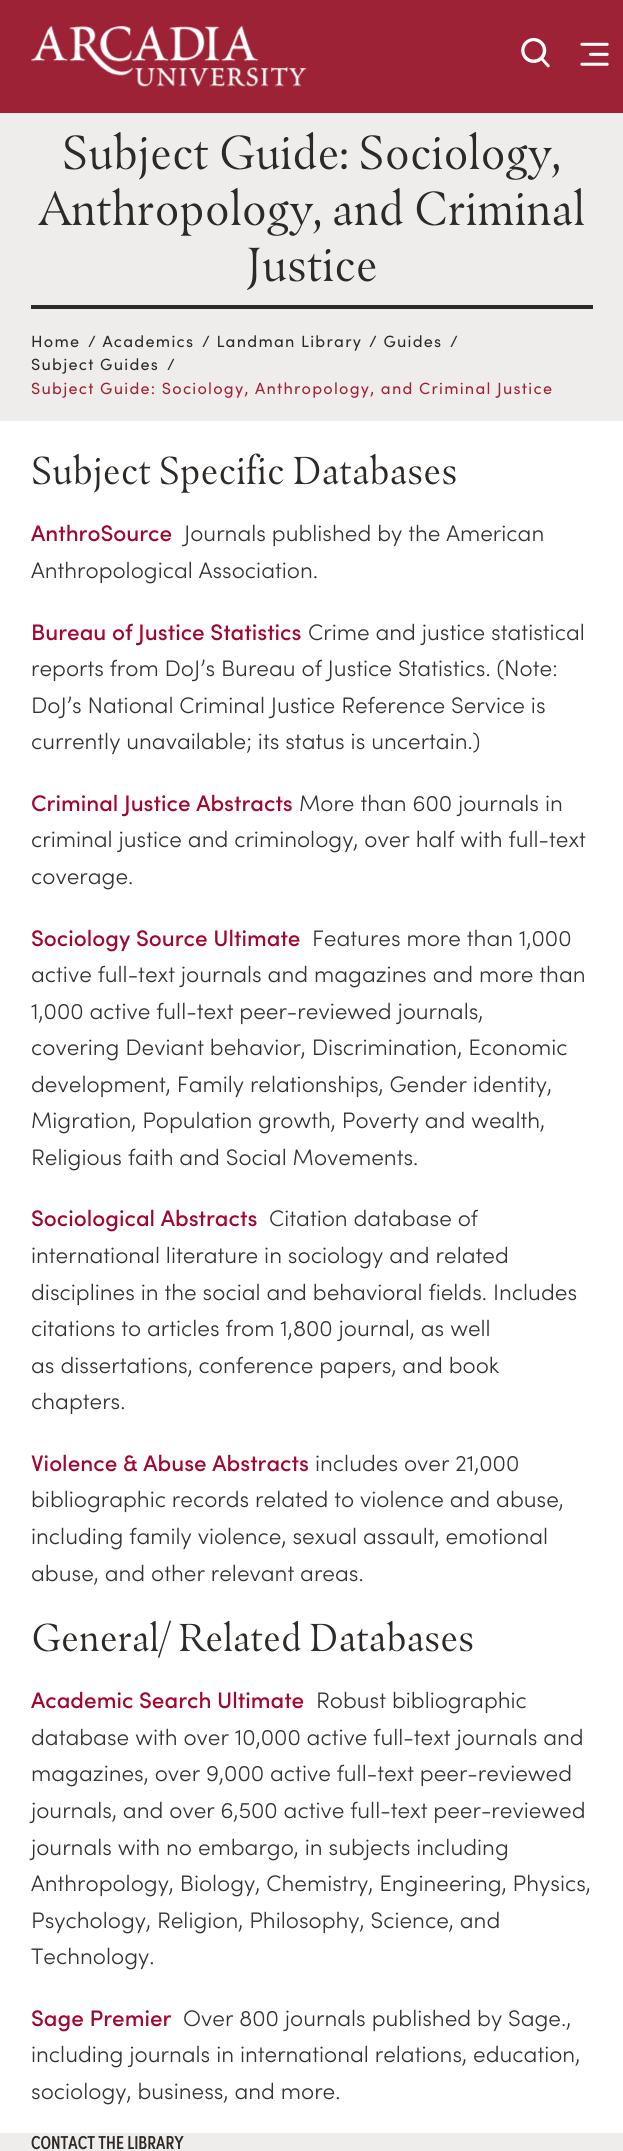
#include <cairo.h>
#include <math.h>
#include <stddef.h>


static void spaced_text(cairo_t *cr, double x, double y, const char *s, double letter, double word) {
    cairo_move_to(cr, x, y);
    while (*s) {
        char ch[5] = {0};
        int n = 0;
        do ch[n++] = *s++; while ((*s & 0xC0) == 0x80);
        cairo_show_text(cr, ch);
        cairo_rel_move_to(cr, letter + word * (*ch == ' '), 0);
    }
}

static void picture(cairo_t *cr, const char *path, double x, double y, double w, double h) {
    cairo_surface_t *image = cairo_image_surface_create_from_png(path);
    cairo_save(cr);
    cairo_set_source_surface(cr, image, x, y);
    cairo_rectangle(cr, x, y, w, h);
    cairo_fill(cr);
    cairo_restore(cr);
    cairo_surface_destroy(image);
}

int main(void) {
    cairo_surface_t *surface = cairo_image_surface_create(CAIRO_FORMAT_RGB24, 623, 2151);
    cairo_t *cr = cairo_create(surface);
    cairo_font_options_t *options = cairo_font_options_create();
    cairo_font_options_set_hint_metrics(options, CAIRO_HINT_METRICS_OFF);
    cairo_font_options_set_hint_style(options, CAIRO_HINT_STYLE_NONE);
    cairo_set_font_options(cr, options);
    cairo_set_miter_limit(cr, 4);
    cairo_set_source_rgb(cr, 1, 1, 1);
    cairo_paint(cr);
    cairo_set_source_rgb(cr, 0.616, 0.133, 0.208);
    cairo_rectangle(cr, 0, 0, 623, 113);
    cairo_fill(cr);
    picture(cr, "img1.png", 31, 26, 276, 61);
    picture(cr, "img2.png", 521, 38, 29, 30);
    picture(cr, "img3.png", 580, 42, 29, 24);
    cairo_set_source_rgb(cr, 0.937, 0.929, 0.918);
    cairo_rectangle(cr, 0, 113, 623, 308);
    cairo_fill(cr);
    cairo_set_source_rgb(cr, 0.176, 0.161, 0.149);
    cairo_rectangle(cr, 31, 305, 562, 4);
    cairo_fill(cr);
    cairo_select_font_face(cr, "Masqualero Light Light", CAIRO_FONT_SLANT_NORMAL, CAIRO_FONT_WEIGHT_NORMAL);
    cairo_set_font_size(cr, 47.5);
    cairo_move_to(cr, 62, 169);
    cairo_show_text(cr, "Subject Guide: Sociology,");
    cairo_move_to(cr, 39, 225);
    cairo_show_text(cr, "Anthropology, and Criminal");
    cairo_move_to(cr, 246, 281);
    cairo_show_text(cr, "Justice");
    cairo_select_font_face(cr, "Sofia", CAIRO_FONT_SLANT_NORMAL, CAIRO_FONT_WEIGHT_NORMAL);
    cairo_set_font_size(cr, 16.25);
    spaced_text(cr, 31, 347, "Home", 1.25, 0);
    spaced_text(cr, 88, 347, "/ Academics", 1.25, 0);
    spaced_text(cr, 202, 347, "/ Landman Library", 1.25, 0);
    spaced_text(cr, 369, 347, "/ Guides", 1.25, 0);
    spaced_text(cr, 450, 347, "/", 1.25, 0);
    spaced_text(cr, 31, 370, "Subject Guides", 1.25, 0);
    spaced_text(cr, 167, 370, "/", 1.25, 0);
    cairo_set_source_rgb(cr, 0.616, 0.133, 0.208);
    spaced_text(cr, 31, 394, "Subject Guide: Sociology, Anthropology, and Criminal Justice", 1.25, 0);
    cairo_select_font_face(cr, "Masqualero Light Light", CAIRO_FONT_SLANT_NORMAL, CAIRO_FONT_WEIGHT_NORMAL);
    cairo_set_font_size(cr, 38.75);
    cairo_set_source_rgb(cr, 0.176, 0.161, 0.149);
    cairo_move_to(cr, 31, 484);
    cairo_show_text(cr, "Subject Specific Databases");
    cairo_select_font_face(cr, "Sofia Medium", CAIRO_FONT_SLANT_NORMAL, CAIRO_FONT_WEIGHT_NORMAL);
    cairo_set_font_size(cr, 22.5);
    cairo_set_source_rgb(cr, 0.635, 0.024, 0.188);
    cairo_move_to(cr, 31, 541);
    cairo_show_text(cr, "AnthroSource");
    cairo_select_font_face(cr, "Sofia Light", CAIRO_FONT_SLANT_NORMAL, CAIRO_FONT_WEIGHT_NORMAL);
    cairo_set_source_rgb(cr, 0.2, 0.2, 0.2);
    cairo_move_to(cr, 184, 541);
    cairo_show_text(cr, "Journals published by the American");
    cairo_move_to(cr, 31, 578);
    cairo_show_text(cr, "Anthropological Association.");
    cairo_select_font_face(cr, "Sofia Medium", CAIRO_FONT_SLANT_NORMAL, CAIRO_FONT_WEIGHT_NORMAL);
    cairo_set_source_rgb(cr, 0.635, 0.024, 0.188);
    cairo_move_to(cr, 31, 640);
    cairo_show_text(cr, "Bureau of Justice Statistics");
    cairo_select_font_face(cr, "Sofia Light", CAIRO_FONT_SLANT_NORMAL, CAIRO_FONT_WEIGHT_NORMAL);
    cairo_set_source_rgb(cr, 0.2, 0.2, 0.2);
    cairo_move_to(cr, 308, 640);
    cairo_show_text(cr, "Crime and justice statistical");
    cairo_move_to(cr, 31, 676);
    cairo_show_text(cr, "reports from DoJ’s Bureau of Justice Statistics. (Note:");
    cairo_move_to(cr, 31, 713);
    cairo_show_text(cr, "DoJ’s National Criminal Justice Reference Service is");
    cairo_move_to(cr, 31, 749);
    cairo_show_text(cr, "currently unavailable; its status is uncertain.)");
    cairo_select_font_face(cr, "Sofia Medium", CAIRO_FONT_SLANT_NORMAL, CAIRO_FONT_WEIGHT_NORMAL);
    cairo_set_source_rgb(cr, 0.635, 0.024, 0.188);
    cairo_move_to(cr, 31, 811);
    cairo_show_text(cr, "Criminal Justice Abstracts");
    cairo_select_font_face(cr, "Sofia Light", CAIRO_FONT_SLANT_NORMAL, CAIRO_FONT_WEIGHT_NORMAL);
    cairo_set_source_rgb(cr, 0.2, 0.2, 0.2);
    cairo_move_to(cr, 299, 811);
    cairo_show_text(cr, "More than 600 journals in");
    cairo_move_to(cr, 31, 847);
    cairo_show_text(cr, "criminal justice and criminology, over half with full-text");
    cairo_move_to(cr, 31, 884);
    cairo_show_text(cr, "coverage.");
    cairo_select_font_face(cr, "Sofia Medium", CAIRO_FONT_SLANT_NORMAL, CAIRO_FONT_WEIGHT_NORMAL);
    cairo_set_source_rgb(cr, 0.635, 0.024, 0.188);
    cairo_move_to(cr, 31, 946);
    cairo_show_text(cr, "Sociology Source Ultimate");
    cairo_select_font_face(cr, "Sofia Light", CAIRO_FONT_SLANT_NORMAL, CAIRO_FONT_WEIGHT_NORMAL);
    cairo_set_source_rgb(cr, 0.2, 0.2, 0.2);
    cairo_move_to(cr, 312, 946);
    cairo_show_text(cr, "Features more than 1,000");
    cairo_move_to(cr, 31, 982);
    cairo_show_text(cr, "active full-text journals and magazines and more than");
    cairo_move_to(cr, 31, 1019);
    cairo_show_text(cr, "1,000 active full-text peer-reviewed journals,");
    cairo_move_to(cr, 31, 1055);
    cairo_show_text(cr, "covering Deviant behavior, Discrimination, Economic");
    cairo_move_to(cr, 31, 1092);
    cairo_show_text(cr, "development, Family relationships, Gender identity,");
    cairo_move_to(cr, 31, 1128);
    cairo_show_text(cr, "Migration, Population growth, Poverty and wealth,");
    cairo_move_to(cr, 31, 1165);
    cairo_show_text(cr, "Religious faith and Social Movements.");
    cairo_select_font_face(cr, "Sofia Medium", CAIRO_FONT_SLANT_NORMAL, CAIRO_FONT_WEIGHT_NORMAL);
    cairo_set_source_rgb(cr, 0.635, 0.024, 0.188);
    cairo_move_to(cr, 31, 1226);
    cairo_show_text(cr, "Sociological Abstracts");
    cairo_select_font_face(cr, "Sofia Light", CAIRO_FONT_SLANT_NORMAL, CAIRO_FONT_WEIGHT_NORMAL);
    cairo_set_source_rgb(cr, 0.2, 0.2, 0.2);
    cairo_move_to(cr, 269, 1226);
    cairo_show_text(cr, "Citation database of");
    cairo_move_to(cr, 31, 1263);
    cairo_show_text(cr, "international literature in sociology and related");
    cairo_move_to(cr, 31, 1300);
    cairo_show_text(cr, "disciplines in the social and behavioral fields. Includes");
    cairo_move_to(cr, 31, 1336);
    cairo_show_text(cr, "citations to articles from 1,800 journal, as well");
    cairo_move_to(cr, 31, 1373);
    cairo_show_text(cr, "as dissertations, conference papers, and book");
    cairo_move_to(cr, 31, 1409);
    cairo_show_text(cr, "chapters.");
    cairo_select_font_face(cr, "Sofia Medium", CAIRO_FONT_SLANT_NORMAL, CAIRO_FONT_WEIGHT_NORMAL);
    cairo_set_source_rgb(cr, 0.635, 0.024, 0.188);
    cairo_move_to(cr, 31, 1471);
    cairo_show_text(cr, "Violence & Abuse Abstracts");
    cairo_select_font_face(cr, "Sofia Light", CAIRO_FONT_SLANT_NORMAL, CAIRO_FONT_WEIGHT_NORMAL);
    cairo_set_source_rgb(cr, 0.2, 0.2, 0.2);
    cairo_move_to(cr, 315, 1471);
    cairo_show_text(cr, "includes over 21,000");
    cairo_move_to(cr, 31, 1507);
    cairo_show_text(cr, "bibliographic records related to violence and abuse,");
    cairo_move_to(cr, 31, 1544);
    cairo_show_text(cr, "including family violence, sexual assault, emotional");
    cairo_move_to(cr, 31, 1581);
    cairo_show_text(cr, "abuse, and other relevant areas.");
    cairo_select_font_face(cr, "Masqualero Light Light", CAIRO_FONT_SLANT_NORMAL, CAIRO_FONT_WEIGHT_NORMAL);
    cairo_set_font_size(cr, 38.75);
    cairo_set_source_rgb(cr, 0.176, 0.161, 0.149);
    cairo_move_to(cr, 31, 1651);
    cairo_show_text(cr, "General/ Related Databases");
    cairo_select_font_face(cr, "Sofia Medium", CAIRO_FONT_SLANT_NORMAL, CAIRO_FONT_WEIGHT_NORMAL);
    cairo_set_font_size(cr, 22.5);
    cairo_set_source_rgb(cr, 0.635, 0.024, 0.188);
    cairo_move_to(cr, 31, 1708);
    cairo_show_text(cr, "Academic Search Ultimate");
    cairo_select_font_face(cr, "Sofia Light", CAIRO_FONT_SLANT_NORMAL, CAIRO_FONT_WEIGHT_NORMAL);
    cairo_set_source_rgb(cr, 0.2, 0.2, 0.2);
    cairo_move_to(cr, 316, 1708);
    cairo_show_text(cr, "Robust bibliographic");
    cairo_move_to(cr, 31, 1745);
    cairo_show_text(cr, "database with over 10,000 active full-text journals and");
    cairo_move_to(cr, 31, 1781);
    cairo_show_text(cr, "magazines, over 9,000 active full-text peer-reviewed");
    cairo_move_to(cr, 31, 1818);
    cairo_show_text(cr, "journals, and over 6,500 active full-text peer-reviewed");
    cairo_move_to(cr, 31, 1855);
    cairo_show_text(cr, "journals with no embargo, in subjects including");
    cairo_move_to(cr, 31, 1891);
    cairo_show_text(cr, "Anthropology, Biology, Chemistry, Engineering, Physics,");
    cairo_move_to(cr, 31, 1928);
    cairo_show_text(cr, "Psychology, Religion, Philosophy, Science, and");
    cairo_move_to(cr, 31, 1964);
    cairo_show_text(cr, "Technology.");
    cairo_select_font_face(cr, "Sofia Medium", CAIRO_FONT_SLANT_NORMAL, CAIRO_FONT_WEIGHT_NORMAL);
    cairo_set_source_rgb(cr, 0.635, 0.024, 0.188);
    cairo_move_to(cr, 31, 2026);
    cairo_show_text(cr, "Sage Premier");
    cairo_select_font_face(cr, "Sofia Light", CAIRO_FONT_SLANT_NORMAL, CAIRO_FONT_WEIGHT_NORMAL);
    cairo_set_source_rgb(cr, 0.2, 0.2, 0.2);
    cairo_move_to(cr, 183, 2026);
    cairo_show_text(cr, "Over 800 journals published by Sage.,");
    cairo_move_to(cr, 31, 2062);
    cairo_show_text(cr, "including journals in international relations, education,");
    cairo_move_to(cr, 31, 2099);
    cairo_show_text(cr, "sociology, business, and more.");
    cairo_set_source_rgb(cr, 0.937, 0.929, 0.918);
    cairo_rectangle(cr, 0, 2133, 623, 18);
    cairo_fill(cr);
    cairo_select_font_face(cr, "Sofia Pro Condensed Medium", CAIRO_FONT_SLANT_NORMAL, CAIRO_FONT_WEIGHT_NORMAL);
    cairo_set_font_size(cr, 18.75);
    cairo_set_source_rgb(cr, 0.176, 0.161, 0.149);
    cairo_move_to(cr, 31, 2149);
    cairo_show_text(cr, "CONTACT THE LIBRARY");
    cairo_surface_write_to_png(surface, "page.png");
    cairo_font_options_destroy(options);
    cairo_destroy(cr);
    cairo_surface_destroy(surface);
    return 0;
}
